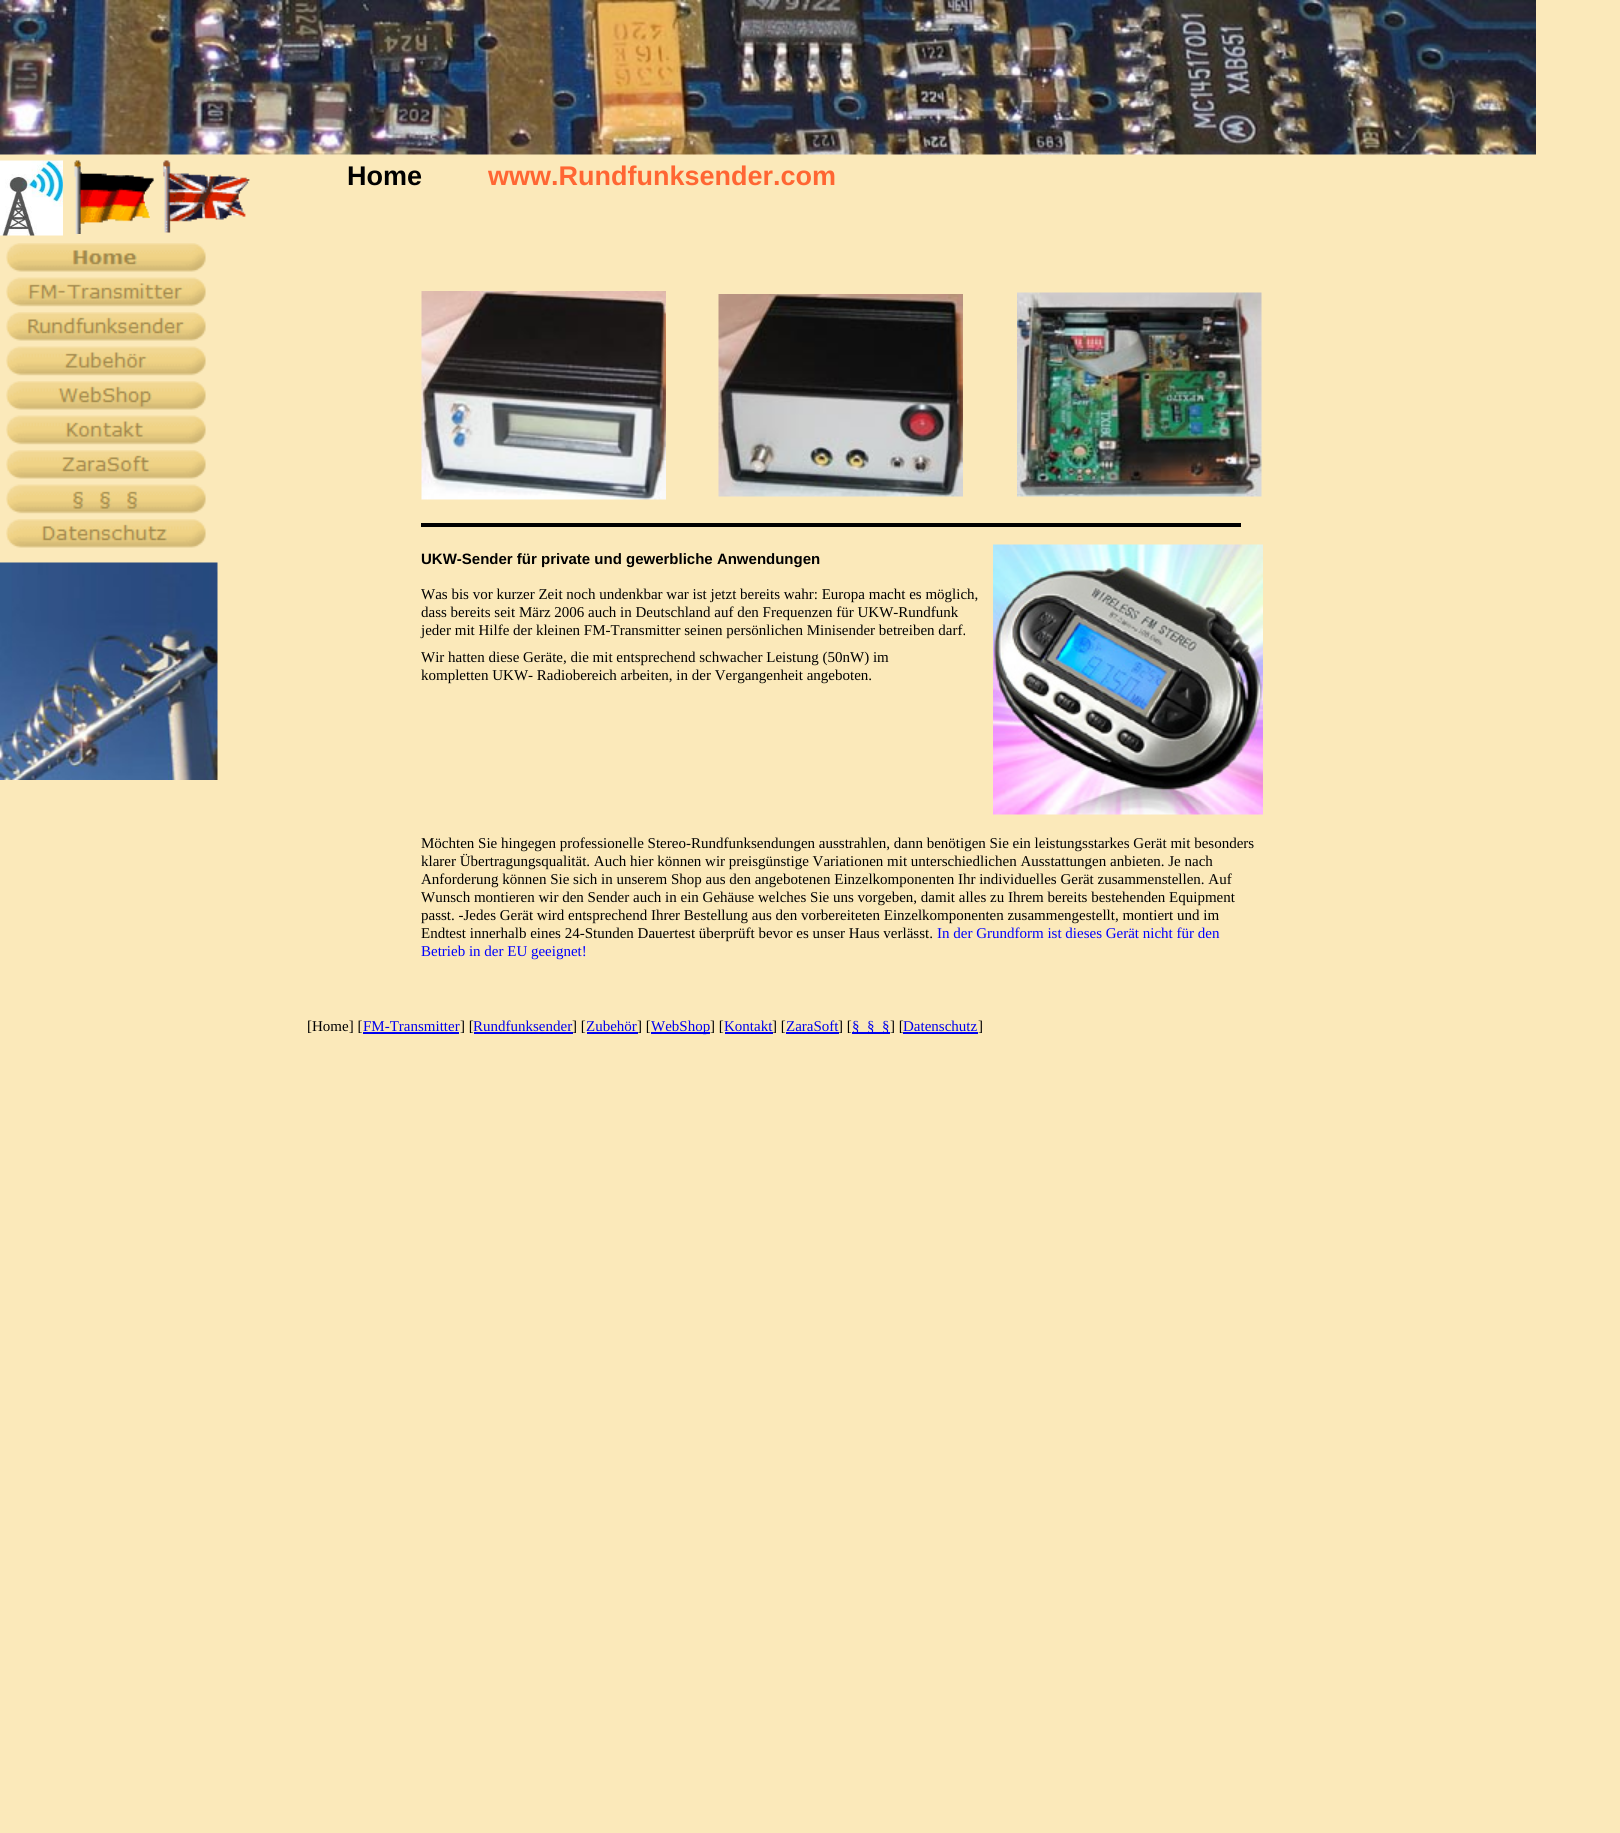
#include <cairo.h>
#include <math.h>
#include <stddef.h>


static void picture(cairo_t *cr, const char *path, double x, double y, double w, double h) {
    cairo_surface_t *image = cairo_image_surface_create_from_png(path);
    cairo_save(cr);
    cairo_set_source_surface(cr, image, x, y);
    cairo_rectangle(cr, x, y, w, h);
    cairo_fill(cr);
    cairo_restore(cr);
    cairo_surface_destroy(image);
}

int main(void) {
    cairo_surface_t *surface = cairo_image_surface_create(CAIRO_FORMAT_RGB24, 1620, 1833);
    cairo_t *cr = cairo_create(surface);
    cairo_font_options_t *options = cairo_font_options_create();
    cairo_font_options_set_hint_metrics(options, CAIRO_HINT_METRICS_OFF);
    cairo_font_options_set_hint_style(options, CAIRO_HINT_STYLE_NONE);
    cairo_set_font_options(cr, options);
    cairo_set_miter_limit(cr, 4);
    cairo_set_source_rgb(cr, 0.984, 0.914, 0.729);
    cairo_paint(cr);
    picture(cr, "img1.png", 0, 0, 1536, 155);
    picture(cr, "img2.png", 0, 160, 63, 76);
    picture(cr, "img3.png", 74, 160, 80, 74);
    picture(cr, "img4.png", 163, 160, 87, 73);
    cairo_select_font_face(cr, "Liberation Sans", CAIRO_FONT_SLANT_NORMAL, CAIRO_FONT_WEIGHT_BOLD);
    cairo_set_font_size(cr, 27);
    cairo_set_source_rgb(cr, 0, 0, 0);
    cairo_move_to(cr, 347, 185);
    cairo_show_text(cr, "Home");
    cairo_set_source_rgb(cr, 1, 0.4, 0.2);
    cairo_move_to(cr, 488, 185);
    cairo_show_text(cr, "www.Rundfunksender.com");
    picture(cr, "img5.png", 6, 243, 200, 29);
    picture(cr, "img6.png", 6, 277, 200, 30);
    picture(cr, "img7.png", 6, 312, 200, 29);
    picture(cr, "img8.png", 6, 346, 200, 30);
    picture(cr, "img9.png", 6, 381, 200, 29);
    picture(cr, "img10.png", 6, 415, 200, 30);
    picture(cr, "img11.png", 6, 450, 200, 29);
    picture(cr, "img12.png", 6, 484, 200, 30);
    picture(cr, "img13.png", 6, 519, 200, 29);
    picture(cr, "img14.png", 0, 562, 218, 218);
    picture(cr, "img15.png", 421, 291, 245, 209);
    picture(cr, "img16.png", 718, 294, 245, 203);
    picture(cr, "img17.png", 1017, 292, 245, 205);
    cairo_set_source_rgb(cr, 0, 0, 0);
    cairo_rectangle(cr, 421, 523, 820, 4);
    cairo_fill(cr);
    cairo_set_font_size(cr, 15);
    cairo_move_to(cr, 421, 564);
    cairo_show_text(cr, "UKW-Sender für private und gewerbliche Anwendungen");
    cairo_select_font_face(cr, "Liberation Serif", CAIRO_FONT_SLANT_NORMAL, CAIRO_FONT_WEIGHT_NORMAL);
    cairo_move_to(cr, 421, 599);
    cairo_show_text(cr, "Was bis vor kurzer Zeit noch undenkbar war ist jetzt bereits wahr: Europa macht es möglich,");
    cairo_move_to(cr, 421, 617);
    cairo_show_text(cr, "dass bereits seit März 2006 auch in Deutschland auf den Frequenzen für UKW-Rundfunk");
    cairo_move_to(cr, 421, 635);
    cairo_show_text(cr, "jeder mit Hilfe der kleinen FM-Transmitter seinen persönlichen Minisender betreiben darf.");
    cairo_move_to(cr, 421, 662);
    cairo_show_text(cr, "Wir hatten diese Geräte, die mit entsprechend schwacher Leistung (50nW) im");
    cairo_move_to(cr, 421, 680);
    cairo_show_text(cr, "kompletten UKW- Radiobereich arbeiten, in der Vergangenheit angeboten.");
    picture(cr, "img18.png", 993, 544, 270, 271);
    cairo_move_to(cr, 421, 848);
    cairo_show_text(cr, "Möchten Sie hingegen professionelle Stereo-Rundfunksendungen ausstrahlen, dann benötigen Sie ein leistungsstarkes Gerät mit besonders");
    cairo_move_to(cr, 421, 866);
    cairo_show_text(cr, "klarer Übertragungsqualität. Auch hier können wir preisgünstige Variationen mit unterschiedlichen Ausstattungen anbieten. Je nach");
    cairo_move_to(cr, 421, 884);
    cairo_show_text(cr, "Anforderung können Sie sich in unserem Shop aus den angebotenen Einzelkomponenten Ihr individuelles Gerät zusammenstellen. Auf");
    cairo_move_to(cr, 421, 902);
    cairo_show_text(cr, "Wunsch montieren wir den Sender auch in ein Gehäuse welches Sie uns vorgeben, damit alles zu Ihrem bereits bestehenden Equipment");
    cairo_move_to(cr, 421, 920);
    cairo_show_text(cr, "passt. -Jedes Gerät wird entsprechend Ihrer Bestellung aus den vorbereiteten Einzelkomponenten zusammengestellt, montiert und im");
    cairo_move_to(cr, 421, 938);
    cairo_show_text(cr, "Endtest innerhalb eines 24-Stunden Dauertest überprüft bevor es unser Haus verlässt.");
    cairo_set_source_rgb(cr, 0, 0, 1);
    cairo_move_to(cr, 937, 938);
    cairo_show_text(cr, "In der Grundform ist dieses Gerät nicht für den");
    cairo_move_to(cr, 421, 956);
    cairo_show_text(cr, "Betrieb in der EU geeignet!");
    cairo_set_source_rgb(cr, 0, 0, 0);
    cairo_move_to(cr, 307, 1031);
    cairo_show_text(cr, "[Home] [");
    cairo_set_source_rgb(cr, 0, 0, 0.933);
    cairo_move_to(cr, 363, 1031);
    cairo_show_text(cr, "FM-Transmitter");
    cairo_rectangle(cr, 363, 1032, 96, 2);
    cairo_fill(cr);
    cairo_set_source_rgb(cr, 0, 0, 0);
    cairo_move_to(cr, 460, 1031);
    cairo_show_text(cr, "] [");
    cairo_set_source_rgb(cr, 0, 0, 0.933);
    cairo_move_to(cr, 473, 1031);
    cairo_show_text(cr, "Rundfunksender");
    cairo_rectangle(cr, 474, 1032, 99, 2);
    cairo_fill(cr);
    cairo_set_source_rgb(cr, 0, 0, 0);
    cairo_move_to(cr, 572, 1031);
    cairo_show_text(cr, "] [");
    cairo_set_source_rgb(cr, 0, 0, 0.933);
    cairo_move_to(cr, 586, 1031);
    cairo_show_text(cr, "Zubehör");
    cairo_rectangle(cr, 587, 1032, 51, 2);
    cairo_fill(cr);
    cairo_set_source_rgb(cr, 0, 0, 0);
    cairo_move_to(cr, 637, 1031);
    cairo_show_text(cr, "] [");
    cairo_set_source_rgb(cr, 0, 0, 0.933);
    cairo_rectangle(cr, 651, 1032, 59, 2);
    cairo_fill(cr);
    cairo_move_to(cr, 651, 1031);
    cairo_show_text(cr, "WebShop");
    cairo_set_source_rgb(cr, 0, 0, 0);
    cairo_move_to(cr, 710, 1031);
    cairo_show_text(cr, "] [");
    cairo_set_source_rgb(cr, 0, 0, 0.933);
    cairo_move_to(cr, 724, 1031);
    cairo_show_text(cr, "Kontakt");
    cairo_rectangle(cr, 725, 1032, 48, 2);
    cairo_fill(cr);
    cairo_set_source_rgb(cr, 0, 0, 0);
    cairo_move_to(cr, 772, 1031);
    cairo_show_text(cr, "] [");
    cairo_set_source_rgb(cr, 0, 0, 0.933);
    cairo_move_to(cr, 786, 1031);
    cairo_show_text(cr, "ZaraSoft");
    cairo_rectangle(cr, 786, 1032, 53, 2);
    cairo_fill(cr);
    cairo_set_source_rgb(cr, 0, 0, 0);
    cairo_move_to(cr, 838, 1031);
    cairo_show_text(cr, "] [");
    cairo_set_source_rgb(cr, 0, 0, 0.933);
    cairo_rectangle(cr, 852, 1032, 38, 2);
    cairo_fill(cr);
    cairo_move_to(cr, 852, 1031);
    cairo_show_text(cr, "§  §  §");
    cairo_set_source_rgb(cr, 0, 0, 0);
    cairo_move_to(cr, 890, 1031);
    cairo_show_text(cr, "] [");
    cairo_set_source_rgb(cr, 0, 0, 0.933);
    cairo_move_to(cr, 903, 1031);
    cairo_show_text(cr, "Datenschutz");
    cairo_rectangle(cr, 903, 1032, 75, 2);
    cairo_fill(cr);
    cairo_set_source_rgb(cr, 0, 0, 0);
    cairo_move_to(cr, 978, 1031);
    cairo_show_text(cr, "]");
    cairo_surface_write_to_png(surface, "page.png");
    cairo_font_options_destroy(options);
    cairo_destroy(cr);
    cairo_surface_destroy(surface);
    return 0;
}
